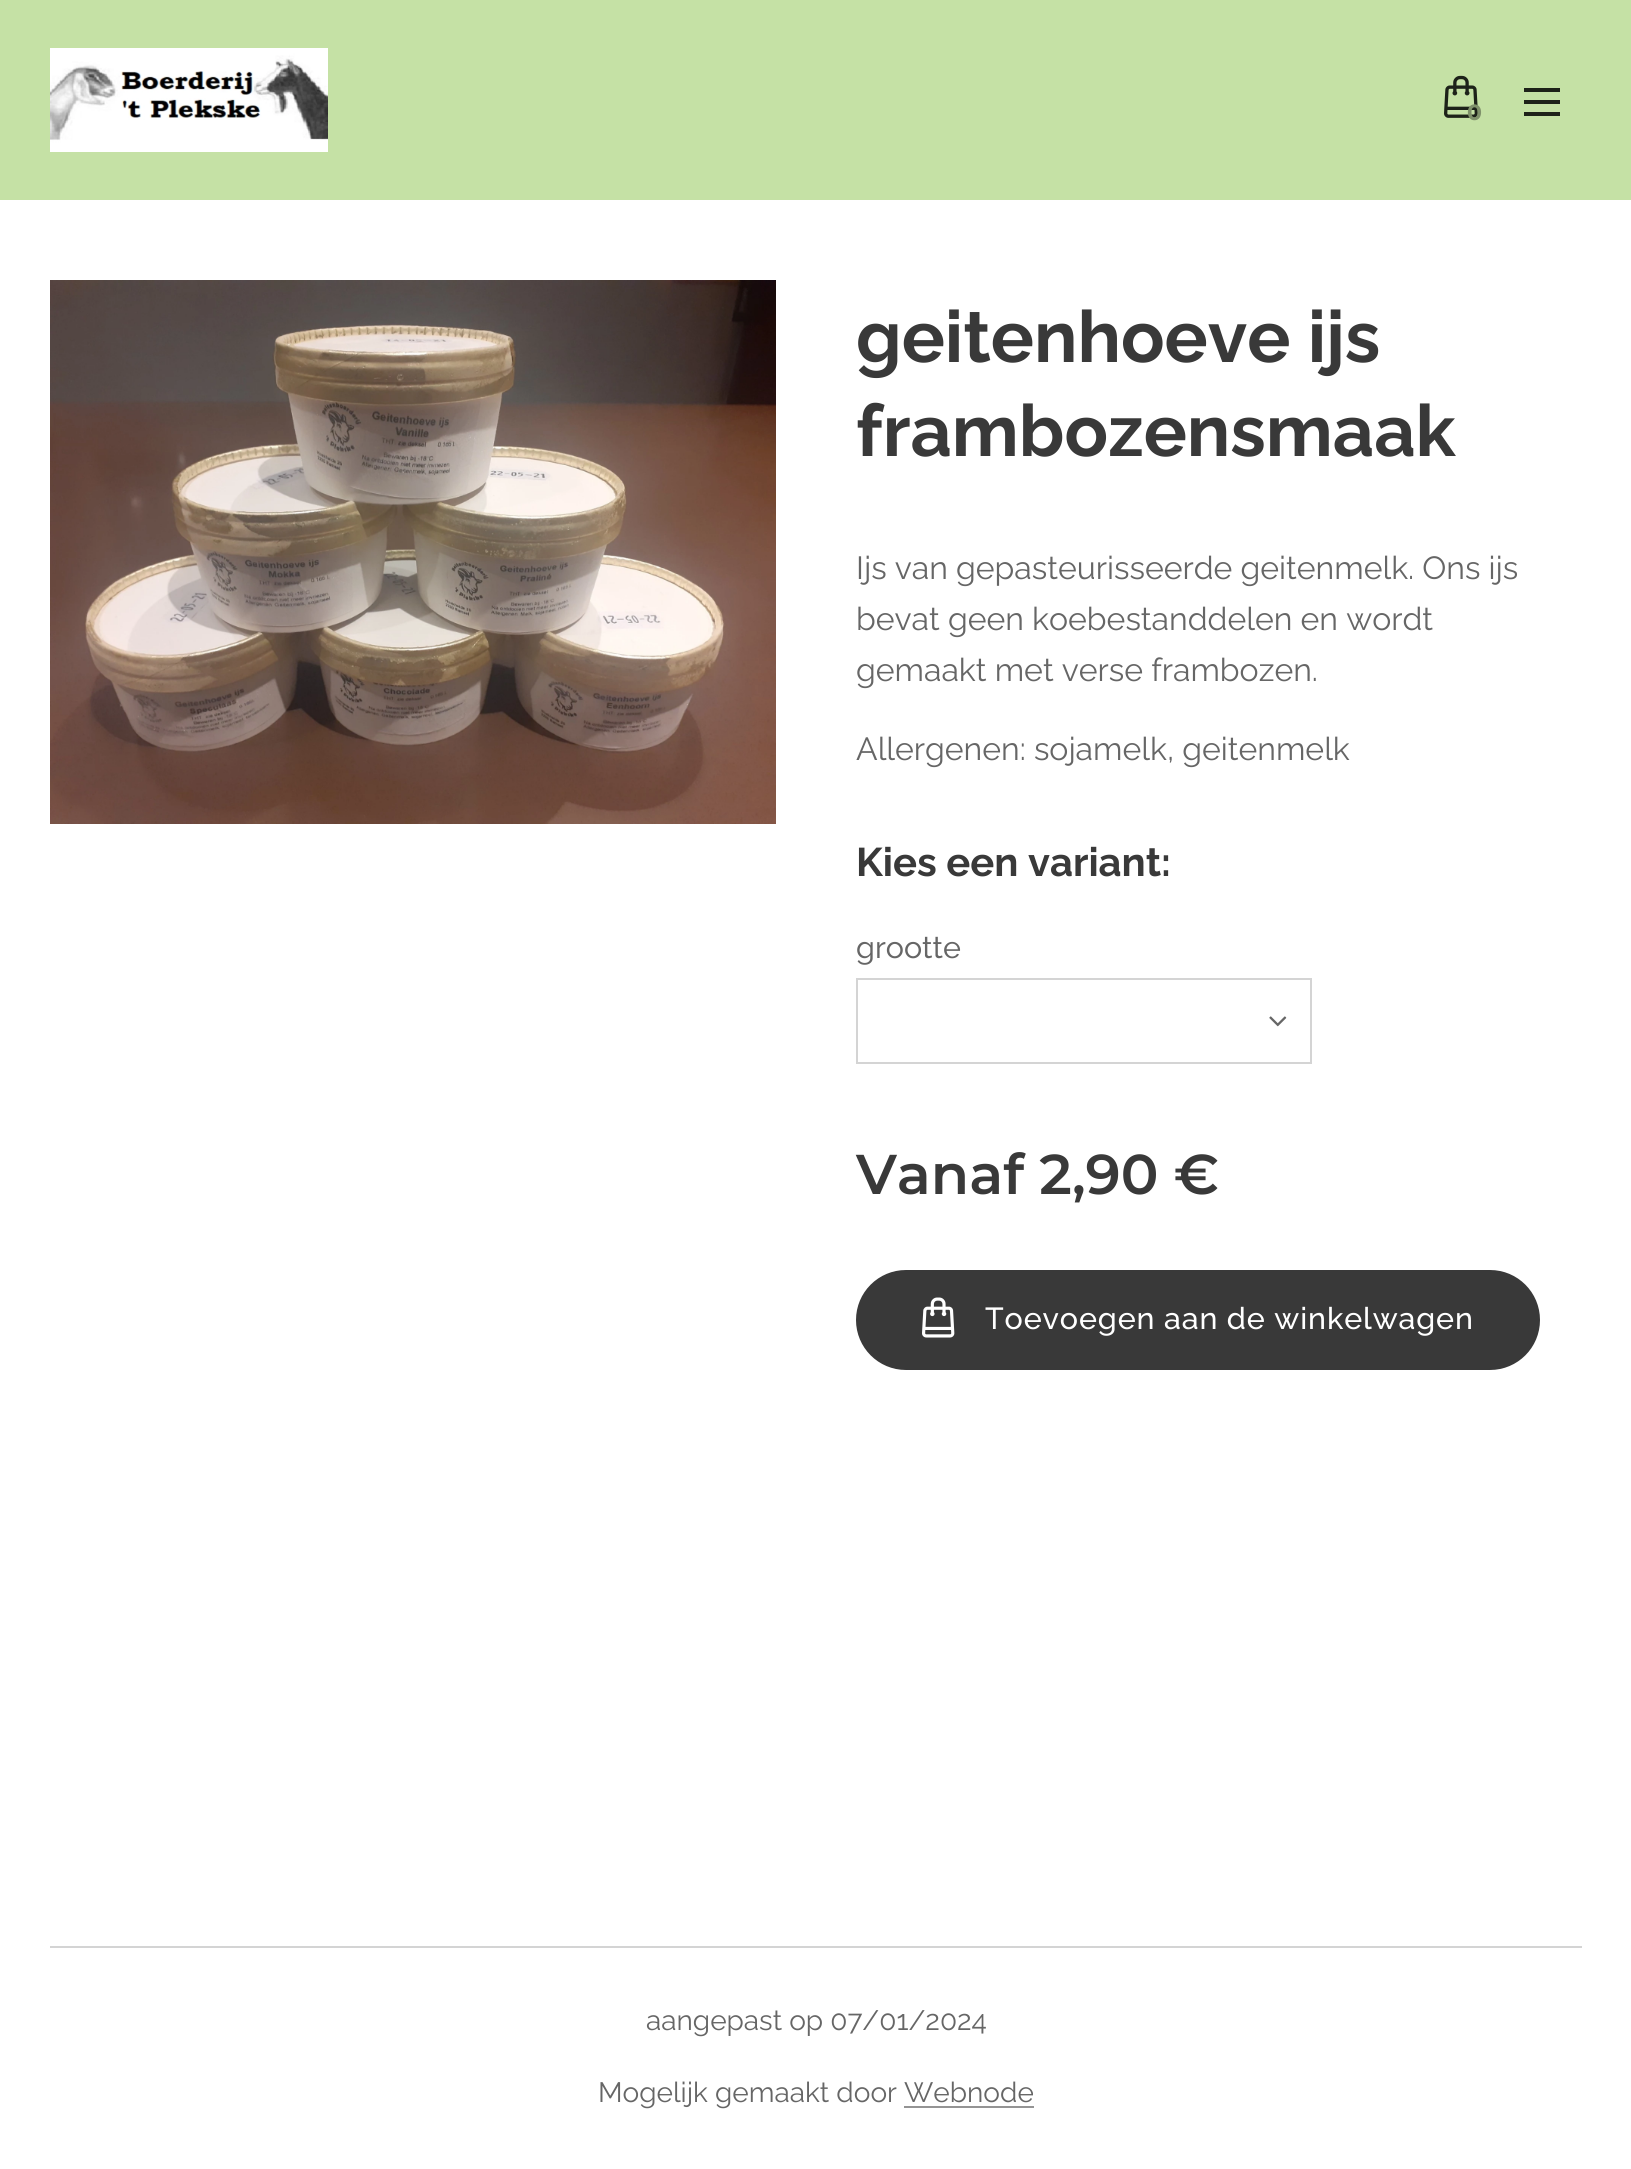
#include <cairo.h>
#include <math.h>
#include <stddef.h>


static void spaced_text(cairo_t *cr, double x, double y, const char *s, double letter, double word) {
    cairo_move_to(cr, x, y);
    while (*s) {
        char ch[5] = {0};
        int n = 0;
        do ch[n++] = *s++; while ((*s & 0xC0) == 0x80);
        cairo_show_text(cr, ch);
        cairo_rel_move_to(cr, letter + word * (*ch == ' '), 0);
    }
}

static void round_rect(cairo_t *cr, double x, double y, double w, double h, double r) {
    cairo_new_sub_path(cr);
    cairo_arc(cr, x + w - r, y + h - r, r, 0, M_PI / 2);
    cairo_arc(cr, x + r, y + h - r, r, M_PI / 2, M_PI);
    cairo_arc(cr, x + r, y + r, r, M_PI, 1.5 * M_PI);
    cairo_arc(cr, x + w - r, y + r, r, 1.5 * M_PI, 2 * M_PI);
    cairo_close_path(cr);
}

static void picture(cairo_t *cr, const char *path, double x, double y, double w, double h) {
    cairo_surface_t *image = cairo_image_surface_create_from_png(path);
    cairo_save(cr);
    cairo_set_source_surface(cr, image, x, y);
    cairo_rectangle(cr, x, y, w, h);
    cairo_fill(cr);
    cairo_restore(cr);
    cairo_surface_destroy(image);
}

int main(void) {
    cairo_surface_t *surface = cairo_image_surface_create(CAIRO_FORMAT_RGB24, 1631, 2169);
    cairo_t *cr = cairo_create(surface);
    cairo_font_options_t *options = cairo_font_options_create();
    cairo_font_options_set_hint_metrics(options, CAIRO_HINT_METRICS_OFF);
    cairo_font_options_set_hint_style(options, CAIRO_HINT_STYLE_NONE);
    cairo_set_font_options(cr, options);
    cairo_set_miter_limit(cr, 4);
    cairo_set_source_rgb(cr, 1, 1, 1);
    cairo_paint(cr);
    cairo_set_source_rgb(cr, 0.773, 0.882, 0.647);
    cairo_rectangle(cr, 0, 0, 1631, 200);
    cairo_fill(cr);
    picture(cr, "img1.png", 50, 48, 278, 104);
    picture(cr, "img2.png", 1444, 75, 34, 43);
    cairo_select_font_face(cr, "Montserrat", CAIRO_FONT_SLANT_NORMAL, CAIRO_FONT_WEIGHT_BOLD);
    cairo_set_font_size(cr, 22);
    cairo_set_source_rgb(cr, 0.498, 0.569, 0.416);
    cairo_move_to(cr, 1467, 120);
    cairo_show_text(cr, "0");
    cairo_set_source_rgb(cr, 0.118, 0.133, 0.098);
    cairo_rectangle(cr, 1524, 100, 36, 4);
    cairo_fill(cr);
    cairo_rectangle(cr, 1524, 88, 36, 4);
    cairo_fill(cr);
    cairo_rectangle(cr, 1524, 112, 36, 4);
    cairo_fill(cr);
    picture(cr, "img3.png", 50, 280, 726, 544);
    cairo_select_font_face(cr, "Raleway", CAIRO_FONT_SLANT_NORMAL, CAIRO_FONT_WEIGHT_BOLD);
    cairo_set_font_size(cr, 72);
    cairo_set_source_rgb(cr, 0.224, 0.224, 0.224);
    cairo_move_to(cr, 856, 362);
    cairo_show_text(cr, "geitenhoeve ijs");
    cairo_move_to(cr, 856, 456);
    cairo_show_text(cr, "frambozensmaak");
    cairo_select_font_face(cr, "Raleway", CAIRO_FONT_SLANT_NORMAL, CAIRO_FONT_WEIGHT_NORMAL);
    cairo_set_font_size(cr, 32);
    cairo_set_source_rgb(cr, 0.4, 0.4, 0.4);
    cairo_move_to(cr, 856, 579);
    cairo_show_text(cr, "Ijs van gepasteurisseerde geitenmelk. Ons ijs");
    cairo_move_to(cr, 856, 630);
    cairo_show_text(cr, "bevat geen koebestanddelen en wordt");
    cairo_move_to(cr, 856, 681);
    cairo_show_text(cr, "gemaakt met verse frambozen.");
    cairo_move_to(cr, 856, 760);
    cairo_show_text(cr, "Allergenen: sojamelk, geitenmelk");
    cairo_select_font_face(cr, "Raleway", CAIRO_FONT_SLANT_NORMAL, CAIRO_FONT_WEIGHT_BOLD);
    cairo_set_font_size(cr, 40);
    cairo_set_source_rgb(cr, 0.224, 0.224, 0.224);
    cairo_move_to(cr, 856, 876);
    cairo_show_text(cr, "Kies een variant:");
    cairo_select_font_face(cr, "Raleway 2", CAIRO_FONT_SLANT_NORMAL, CAIRO_FONT_WEIGHT_NORMAL);
    cairo_set_font_size(cr, 30.4);
    cairo_set_source_rgb(cr, 0.4, 0.4, 0.4);
    cairo_move_to(cr, 856, 958);
    cairo_show_text(cr, "grootte");
    cairo_rectangle(cr, 857, 979, 454, 84);
    cairo_set_source_rgb(cr, 0.831, 0.831, 0.831);
    cairo_stroke(cr);
    picture(cr, "img4.png", 1269, 1016, 18, 11);
    cairo_select_font_face(cr, "Montserrat SemiBold", CAIRO_FONT_SLANT_NORMAL, CAIRO_FONT_WEIGHT_NORMAL);
    cairo_set_font_size(cr, 56);
    cairo_set_source_rgb(cr, 0.224, 0.224, 0.224);
    cairo_move_to(cr, 856, 1194);
    cairo_show_text(cr, "Vanaf 2,90 €");
    round_rect(cr, 857, 1271, 682, 98, 49);
    cairo_fill_preserve(cr);
    cairo_stroke(cr);
    picture(cr, "img5.png", 922, 1297, 33, 41);
    cairo_select_font_face(cr, "Raleway Medium", CAIRO_FONT_SLANT_NORMAL, CAIRO_FONT_WEIGHT_NORMAL);
    cairo_set_font_size(cr, 30.4);
    cairo_set_source_rgb(cr, 1, 1, 1);
    spaced_text(cr, 985, 1329, "Toevoegen aan de winkelwagen", 0.9, 0);
    cairo_set_source_rgb(cr, 0.831, 0.831, 0.831);
    cairo_rectangle(cr, 50, 1946, 1532, 2);
    cairo_fill(cr);
    cairo_select_font_face(cr, "Raleway", CAIRO_FONT_SLANT_NORMAL, CAIRO_FONT_WEIGHT_NORMAL);
    cairo_set_font_size(cr, 28);
    cairo_set_source_rgb(cr, 0.4, 0.4, 0.4);
    cairo_move_to(cr, 646, 2030);
    cairo_show_text(cr, "aangepast op 07/01/2024");
    cairo_move_to(cr, 598, 2102);
    cairo_show_text(cr, "Mogelijk gemaakt door Webnode");
    cairo_set_source_rgb(cr, 0.58, 0.58, 0.58);
    cairo_rectangle(cr, 904, 2106, 130, 2);
    cairo_fill(cr);
    cairo_surface_write_to_png(surface, "page.png");
    cairo_font_options_destroy(options);
    cairo_destroy(cr);
    cairo_surface_destroy(surface);
    return 0;
}
